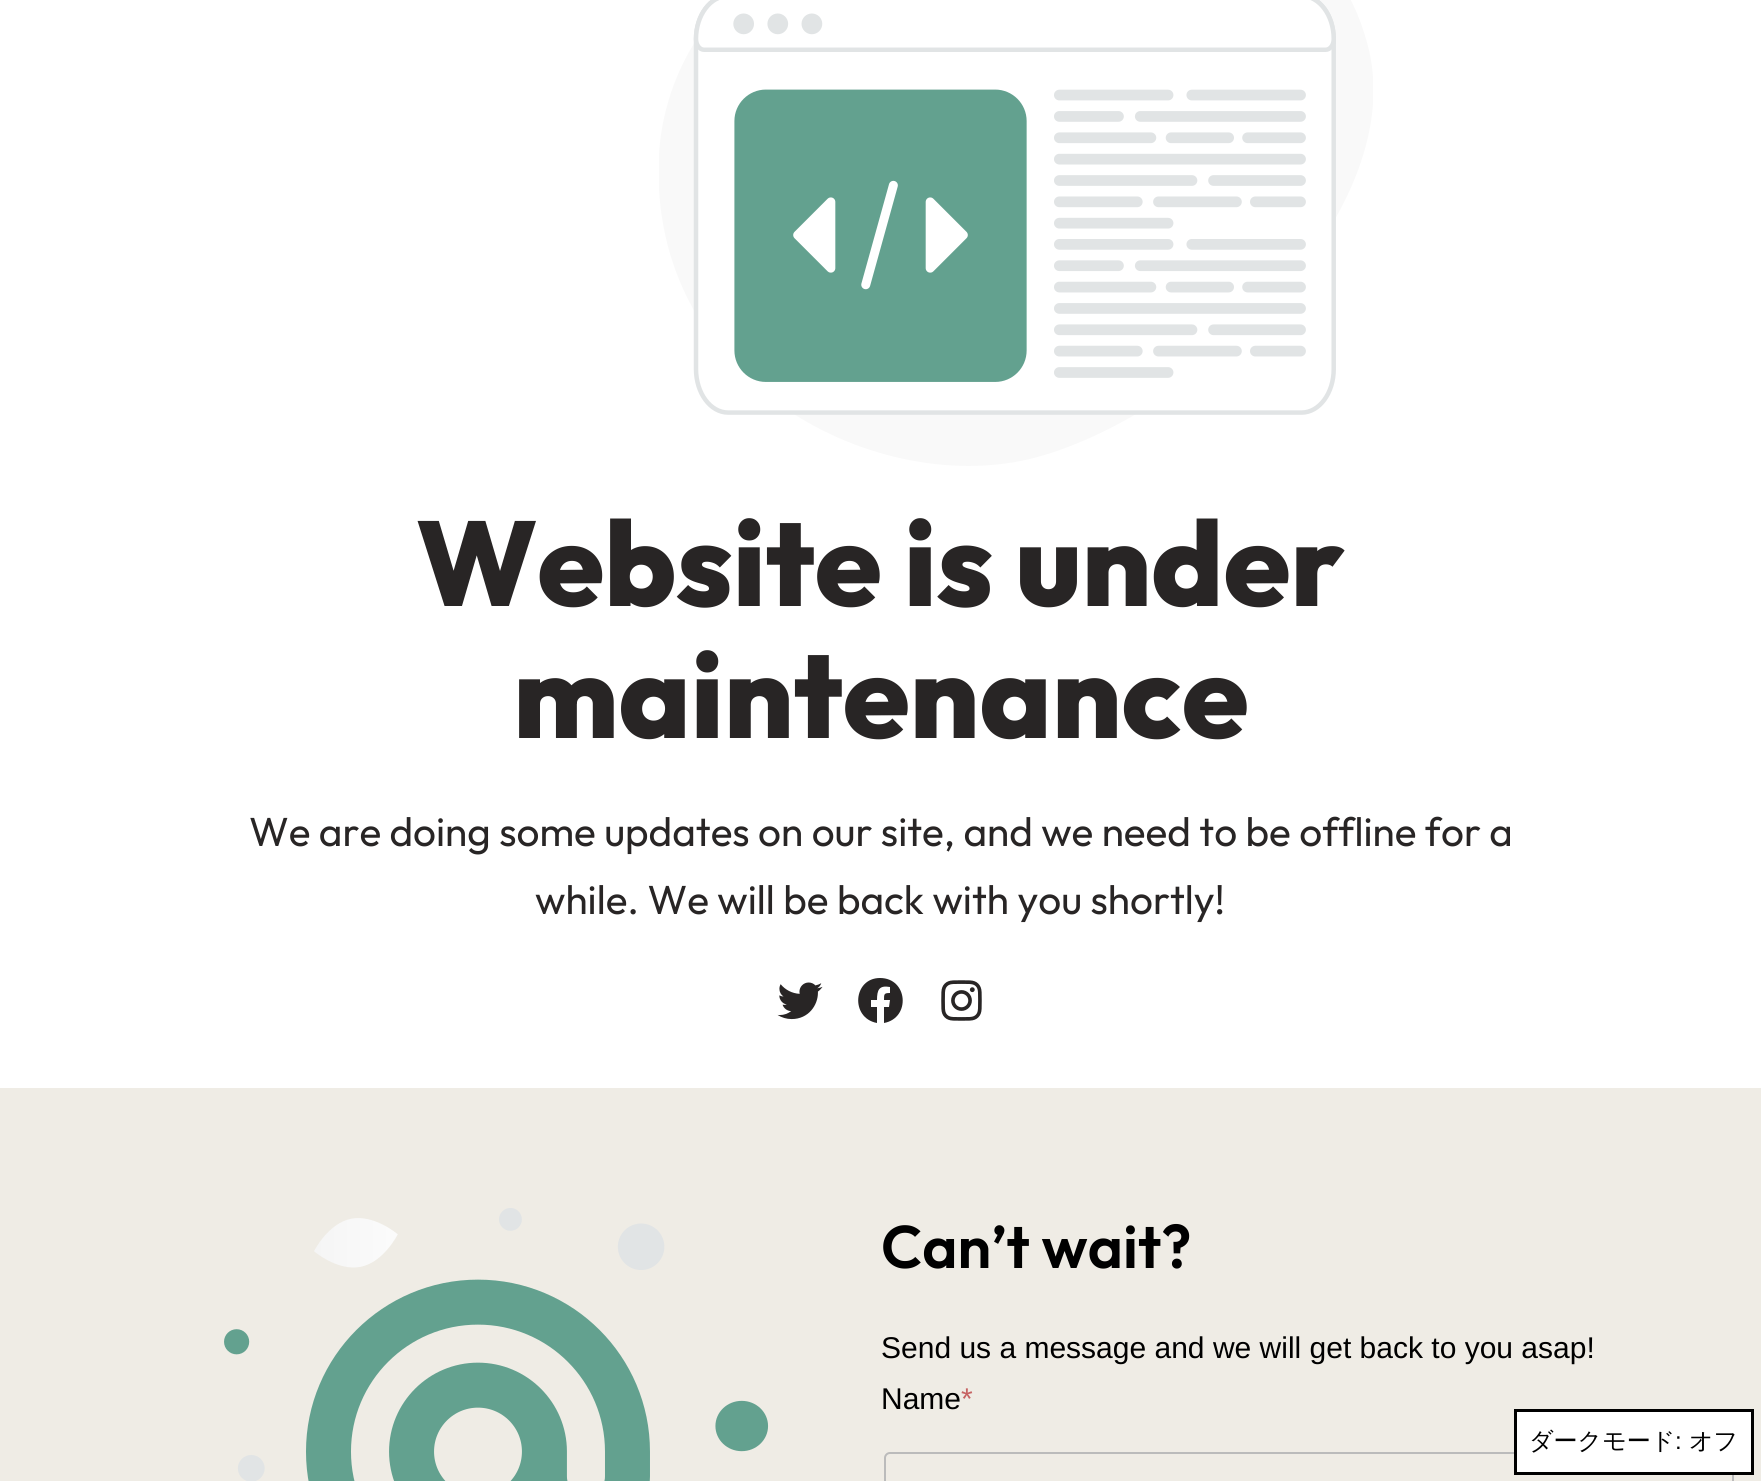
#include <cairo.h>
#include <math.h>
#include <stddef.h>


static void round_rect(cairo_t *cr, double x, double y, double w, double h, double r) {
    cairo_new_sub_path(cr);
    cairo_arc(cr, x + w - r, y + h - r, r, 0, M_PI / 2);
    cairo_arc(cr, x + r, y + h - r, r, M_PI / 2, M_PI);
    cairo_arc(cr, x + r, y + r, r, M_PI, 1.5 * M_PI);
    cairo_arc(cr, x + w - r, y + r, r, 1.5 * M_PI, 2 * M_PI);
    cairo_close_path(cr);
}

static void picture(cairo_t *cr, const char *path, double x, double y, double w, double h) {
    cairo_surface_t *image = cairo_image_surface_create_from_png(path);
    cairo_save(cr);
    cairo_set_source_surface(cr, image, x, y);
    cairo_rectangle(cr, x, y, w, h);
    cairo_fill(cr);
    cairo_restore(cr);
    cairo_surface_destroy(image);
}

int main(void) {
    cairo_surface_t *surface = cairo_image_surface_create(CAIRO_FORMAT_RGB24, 1761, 1481);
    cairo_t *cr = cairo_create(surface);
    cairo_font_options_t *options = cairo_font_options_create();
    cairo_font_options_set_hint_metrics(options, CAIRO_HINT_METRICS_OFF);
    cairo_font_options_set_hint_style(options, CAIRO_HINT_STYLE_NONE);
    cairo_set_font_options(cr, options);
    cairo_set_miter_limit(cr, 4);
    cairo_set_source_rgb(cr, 1, 1, 1);
    cairo_paint(cr);
    picture(cr, "img1.png", 659, 0, 714, 466);
    cairo_select_font_face(cr, "Outfit ExtraBold", CAIRO_FONT_SLANT_NORMAL, CAIRO_FONT_WEIGHT_NORMAL);
    cairo_set_font_size(cr, 120);
    cairo_set_source_rgb(cr, 0.157, 0.145, 0.145);
    cairo_move_to(cr, 416, 606);
    cairo_show_text(cr, "Website is under");
    cairo_move_to(cr, 513, 738);
    cairo_show_text(cr, "maintenance");
    cairo_select_font_face(cr, "Outfit", CAIRO_FONT_SLANT_NORMAL, CAIRO_FONT_WEIGHT_NORMAL);
    cairo_set_font_size(cr, 40.5);
    cairo_move_to(cr, 249, 846);
    cairo_show_text(cr, "We are doing some updates on our site, and we need to be offline for a");
    cairo_move_to(cr, 535, 914);
    cairo_show_text(cr, "while. We will be back with you shortly!");
    picture(cr, "img2.png", 777, 982, 46, 38);
    cairo_new_path(cr);
    cairo_move_to(cr, 880, 978);
    cairo_curve_to(cr, 853, 978, 850, 1018, 877, 1023);
    cairo_line_to(cr, 877, 1007);
    cairo_line_to(cr, 871, 1007);
    cairo_line_to(cr, 871, 1000);
    cairo_line_to(cr, 877, 1000);
    cairo_curve_to(cr, 877, 990, 879, 985, 890, 987);
    cairo_line_to(cr, 890, 993);
    cairo_curve_to(cr, 884, 993, 884, 994, 884, 1000);
    cairo_line_to(cr, 890, 1000);
    cairo_line_to(cr, 889, 1007);
    cairo_line_to(cr, 884, 1007);
    cairo_line_to(cr, 884, 1023);
    cairo_curve_to(cr, 911, 1018, 908, 978, 880, 978);
    cairo_close_path(cr);
    cairo_fill(cr);
    picture(cr, "img3.png", 941, 980, 41, 41);
    cairo_set_source_rgb(cr, 0.937, 0.925, 0.898);
    cairo_rectangle(cr, 0, 1088, 1761, 393);
    cairo_fill(cr);
    picture(cr, "img4.png", 224, 1208, 545, 273);
    cairo_select_font_face(cr, "Outfit SemiBold", CAIRO_FONT_SLANT_NORMAL, CAIRO_FONT_WEIGHT_NORMAL);
    cairo_set_font_size(cr, 60);
    cairo_set_source_rgb(cr, 0, 0, 0);
    cairo_move_to(cr, 881, 1268);
    cairo_show_text(cr, "Can’t wait?");
    cairo_select_font_face(cr, "Liberation Sans", CAIRO_FONT_SLANT_NORMAL, CAIRO_FONT_WEIGHT_NORMAL);
    cairo_set_font_size(cr, 30);
    cairo_move_to(cr, 881, 1358);
    cairo_show_text(cr, "Send us a message and we will get back to you asap!");
    cairo_move_to(cr, 881, 1409);
    cairo_show_text(cr, "Name");
    cairo_set_source_rgb(cr, 0.776, 0.384, 0.384);
    cairo_move_to(cr, 961, 1409);
    cairo_show_text(cr, "*");
    round_rect(cr, 885, 1453, 848, 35, 5);
    cairo_set_source_rgb(cr, 0.733, 0.733, 0.733);
    cairo_stroke(cr);
    cairo_set_source_rgb(cr, 1, 1, 1);
    cairo_rectangle(cr, 1515.5, 1410.5, 237, 63);
    cairo_fill_preserve(cr);
    cairo_set_source_rgb(cr, 0, 0, 0);
    cairo_set_line_width(cr, 3);
    cairo_stroke(cr);
    cairo_select_font_face(cr, "WenQuanYi Zen Hei Medium", CAIRO_FONT_SLANT_NORMAL, CAIRO_FONT_WEIGHT_NORMAL);
    cairo_set_font_size(cr, 24);
    cairo_move_to(cr, 1529, 1449);
    cairo_show_text(cr, "ダークモード");
    cairo_select_font_face(cr, "Liberation Sans", CAIRO_FONT_SLANT_NORMAL, CAIRO_FONT_WEIGHT_NORMAL);
    cairo_move_to(cr, 1675, 1449);
    cairo_show_text(cr, ":");
    cairo_select_font_face(cr, "WenQuanYi Zen Hei Medium", CAIRO_FONT_SLANT_NORMAL, CAIRO_FONT_WEIGHT_NORMAL);
    cairo_move_to(cr, 1689, 1449);
    cairo_show_text(cr, "オフ");
    cairo_surface_write_to_png(surface, "page.png");
    cairo_font_options_destroy(options);
    cairo_destroy(cr);
    cairo_surface_destroy(surface);
    return 0;
}
